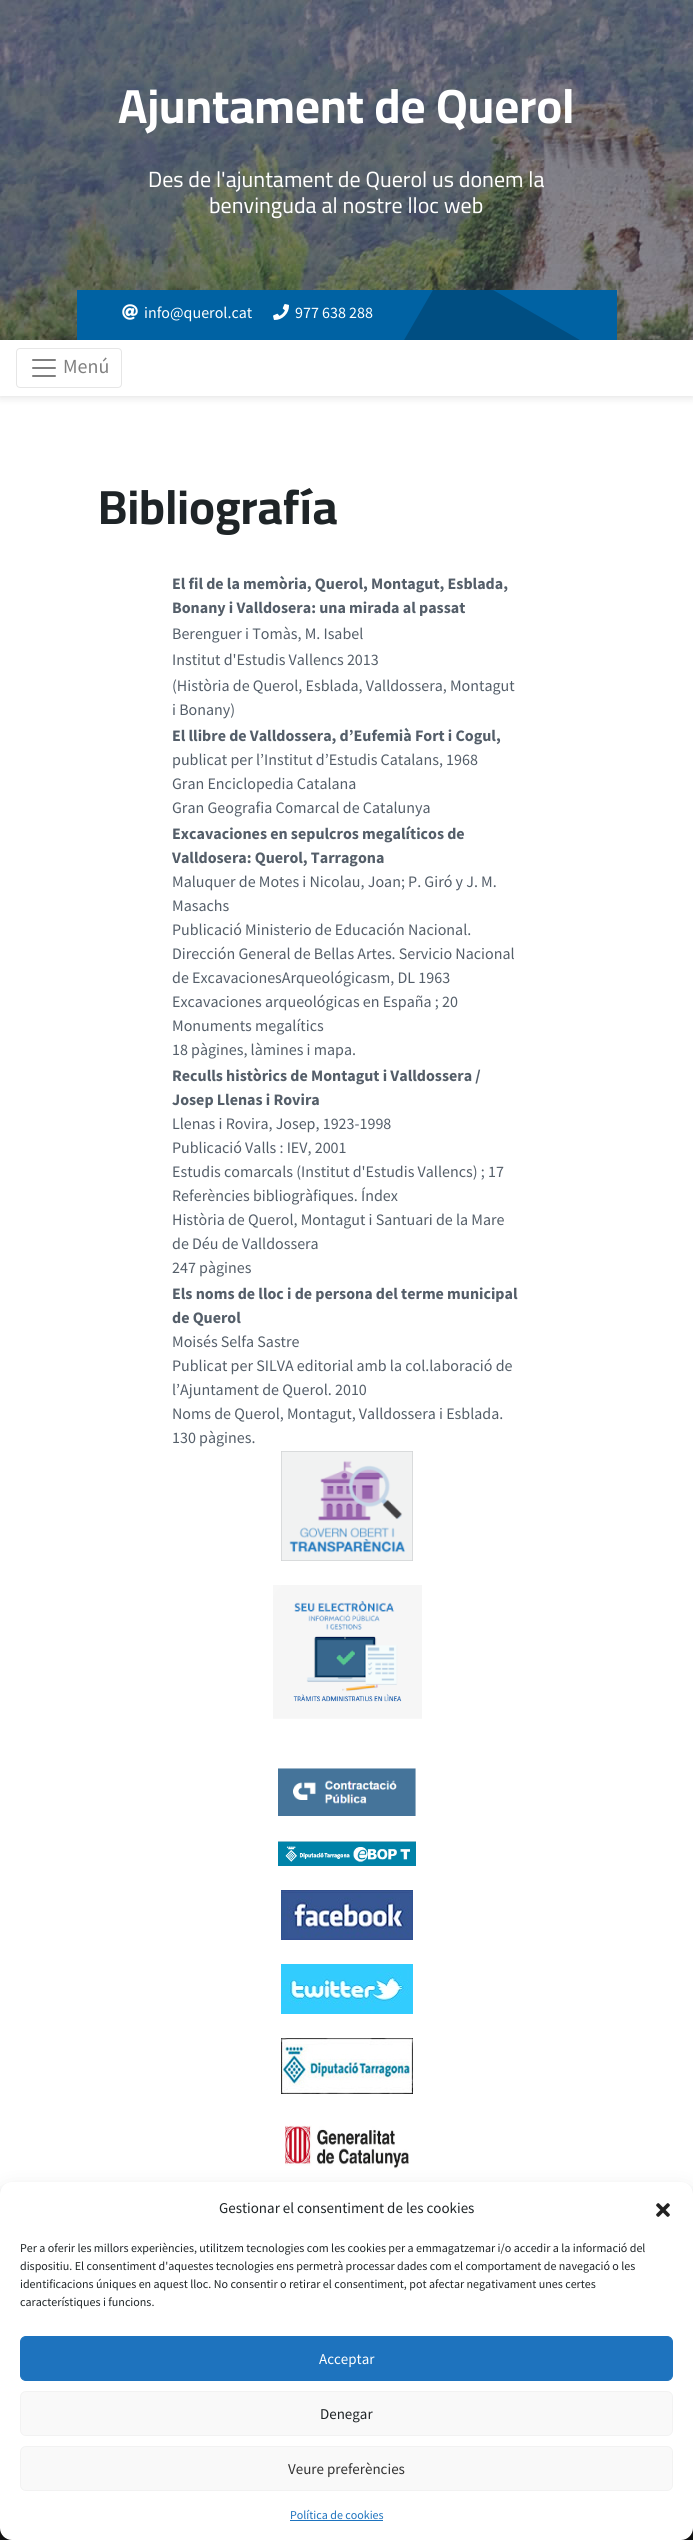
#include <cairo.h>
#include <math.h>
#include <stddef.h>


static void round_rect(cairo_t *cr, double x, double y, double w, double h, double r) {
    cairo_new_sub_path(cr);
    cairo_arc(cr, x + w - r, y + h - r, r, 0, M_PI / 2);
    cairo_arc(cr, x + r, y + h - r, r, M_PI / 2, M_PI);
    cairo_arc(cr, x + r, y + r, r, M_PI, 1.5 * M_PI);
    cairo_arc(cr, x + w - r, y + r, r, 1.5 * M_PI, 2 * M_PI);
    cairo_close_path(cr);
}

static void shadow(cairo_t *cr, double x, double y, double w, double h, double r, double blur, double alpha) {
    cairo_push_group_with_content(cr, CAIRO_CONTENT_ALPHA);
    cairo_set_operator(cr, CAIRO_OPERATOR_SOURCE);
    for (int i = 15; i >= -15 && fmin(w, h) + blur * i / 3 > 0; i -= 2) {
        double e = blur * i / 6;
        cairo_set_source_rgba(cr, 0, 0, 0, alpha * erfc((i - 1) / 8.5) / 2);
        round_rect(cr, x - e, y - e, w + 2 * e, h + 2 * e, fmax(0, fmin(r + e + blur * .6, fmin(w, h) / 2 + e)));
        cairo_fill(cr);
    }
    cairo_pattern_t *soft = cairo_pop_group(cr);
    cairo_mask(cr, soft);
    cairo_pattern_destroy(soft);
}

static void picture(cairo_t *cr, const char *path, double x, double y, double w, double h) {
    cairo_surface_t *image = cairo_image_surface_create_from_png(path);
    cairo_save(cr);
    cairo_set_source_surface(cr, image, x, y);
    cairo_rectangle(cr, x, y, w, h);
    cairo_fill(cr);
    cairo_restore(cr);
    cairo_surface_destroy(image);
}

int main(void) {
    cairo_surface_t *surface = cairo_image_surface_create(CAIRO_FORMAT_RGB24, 693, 2540);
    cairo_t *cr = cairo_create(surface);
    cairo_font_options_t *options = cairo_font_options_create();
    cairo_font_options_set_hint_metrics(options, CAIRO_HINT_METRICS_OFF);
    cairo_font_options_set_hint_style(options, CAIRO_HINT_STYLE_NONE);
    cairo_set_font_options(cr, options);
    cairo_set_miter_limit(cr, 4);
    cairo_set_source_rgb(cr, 1, 1, 1);
    cairo_paint(cr);
    picture(cr, "img1.png", 0, 0, 693, 340);
    cairo_select_font_face(cr, "Cairo", CAIRO_FONT_SLANT_NORMAL, CAIRO_FONT_WEIGHT_BOLD);
    cairo_set_font_size(cr, 48);
    cairo_set_source_rgb(cr, 1, 1, 1);
    cairo_move_to(cr, 118, 123);
    cairo_show_text(cr, "Ajuntament de Querol");
    cairo_select_font_face(cr, "Cairo", CAIRO_FONT_SLANT_NORMAL, CAIRO_FONT_WEIGHT_NORMAL);
    cairo_set_font_size(cr, 22);
    cairo_move_to(cr, 148, 187);
    cairo_show_text(cr, "Des de l'ajuntament de Querol us donem la");
    cairo_move_to(cr, 209, 213);
    cairo_show_text(cr, "benvinguda al nostre lloc web");
    cairo_save(cr);
    cairo_set_fill_rule(cr, CAIRO_FILL_RULE_EVEN_ODD);
    cairo_new_path(cr);
    cairo_move_to(cr, 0, 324);
    cairo_line_to(cr, 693, 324);
    cairo_line_to(cr, 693, 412);
    cairo_line_to(cr, 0, 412);
    cairo_close_path(cr);
    cairo_move_to(cr, 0, 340);
    cairo_line_to(cr, 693, 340);
    cairo_line_to(cr, 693, 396);
    cairo_line_to(cr, 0, 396);
    cairo_close_path(cr);
    cairo_clip(cr);
    cairo_set_source_rgb(cr, 0, 0, 0);
    shadow(cr, 0, 340, 693, 56, 0, 5, 0.15);
    cairo_restore(cr);
    cairo_set_source_rgb(cr, 0, 0.384, 0.639);
    cairo_rectangle(cr, 77, 290, 540, 50);
    cairo_fill(cr);
    picture(cr, "img2.png", 122, 304, 16, 16);
    cairo_select_font_face(cr, "Source Sans Pro", CAIRO_FONT_SLANT_NORMAL, CAIRO_FONT_WEIGHT_NORMAL);
    cairo_set_font_size(cr, 16);
    cairo_set_source_rgb(cr, 1, 1, 1);
    cairo_move_to(cr, 144, 318);
    cairo_show_text(cr, "info@querol.cat");
    picture(cr, "img3.png", 273, 304, 16, 16);
    cairo_move_to(cr, 295, 318);
    cairo_show_text(cr, "977 638 288");
    cairo_save(cr);
    cairo_rectangle(cr, 77, 290, 540, 50);
    cairo_clip(cr);
    cairo_set_source_rgb(cr, 0, 0.306, 0.51);
    cairo_new_path(cr);
    cairo_move_to(cr, 448, 264);
    cairo_line_to(cr, 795, 464);
    cairo_line_to(cr, 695, 637);
    cairo_line_to(cr, 348, 437);
    cairo_close_path(cr);
    cairo_fill(cr);
    cairo_restore(cr);
    round_rect(cr, 16.5, 348.5, 105, 39, 3.5);
    cairo_set_source_rgb(cr, 0.902, 0.902, 0.902);
    cairo_set_line_width(cr, 1);
    cairo_stroke(cr);
    picture(cr, "img4.png", 32, 359, 24, 18);
    cairo_set_font_size(cr, 20);
    cairo_set_source_rgb(cr, 0.502, 0.502, 0.502);
    cairo_move_to(cr, 63, 373);
    cairo_show_text(cr, "Menú");
    cairo_select_font_face(cr, "Cairo", CAIRO_FONT_SLANT_NORMAL, CAIRO_FONT_WEIGHT_BOLD);
    cairo_set_font_size(cr, 48);
    cairo_set_source_rgb(cr, 0.118, 0.141, 0.153);
    cairo_move_to(cr, 98, 524);
    cairo_show_text(cr, "Bibliografía");
    cairo_select_font_face(cr, "Source Sans Pro", CAIRO_FONT_SLANT_NORMAL, CAIRO_FONT_WEIGHT_BOLD);
    cairo_set_font_size(cr, 16);
    cairo_set_source_rgb(cr, 0.329, 0.369, 0.412);
    cairo_move_to(cr, 172, 589);
    cairo_show_text(cr, "El fil de la memòria, Querol, Montagut, Esblada,");
    cairo_move_to(cr, 172, 613);
    cairo_show_text(cr, "Bonany i Valldosera: una mirada al passat");
    cairo_select_font_face(cr, "Source Sans Pro", CAIRO_FONT_SLANT_NORMAL, CAIRO_FONT_WEIGHT_NORMAL);
    cairo_move_to(cr, 172, 639);
    cairo_show_text(cr, "Berenguer i Tomàs, M. Isabel");
    cairo_move_to(cr, 172, 665);
    cairo_show_text(cr, "Institut d'Estudis Vallencs 2013");
    cairo_move_to(cr, 172, 691);
    cairo_show_text(cr, "(Història de Querol, Esblada, Valldossera, Montagut");
    cairo_move_to(cr, 172, 715);
    cairo_show_text(cr, "i Bonany)");
    cairo_select_font_face(cr, "Source Sans Pro", CAIRO_FONT_SLANT_NORMAL, CAIRO_FONT_WEIGHT_BOLD);
    cairo_move_to(cr, 172, 741);
    cairo_show_text(cr, "El llibre de Valldossera, d’Eufemià Fort i Cogul,");
    cairo_select_font_face(cr, "Source Sans Pro", CAIRO_FONT_SLANT_NORMAL, CAIRO_FONT_WEIGHT_NORMAL);
    cairo_move_to(cr, 172, 765);
    cairo_show_text(cr, "publicat per l’Institut d’Estudis Catalans, 1968");
    cairo_move_to(cr, 172, 789);
    cairo_show_text(cr, "Gran Enciclopedia Catalana");
    cairo_move_to(cr, 172, 813);
    cairo_show_text(cr, "Gran Geografia Comarcal de Catalunya");
    cairo_select_font_face(cr, "Source Sans Pro", CAIRO_FONT_SLANT_NORMAL, CAIRO_FONT_WEIGHT_BOLD);
    cairo_move_to(cr, 172, 839);
    cairo_show_text(cr, "Excavaciones en sepulcros megalíticos de");
    cairo_move_to(cr, 172, 863);
    cairo_show_text(cr, "Valldosera: Querol, Tarragona");
    cairo_select_font_face(cr, "Source Sans Pro", CAIRO_FONT_SLANT_NORMAL, CAIRO_FONT_WEIGHT_NORMAL);
    cairo_move_to(cr, 172, 887);
    cairo_show_text(cr, "Maluquer de Motes i Nicolau, Joan; P. Giró y J. M.");
    cairo_move_to(cr, 172, 911);
    cairo_show_text(cr, "Masachs");
    cairo_move_to(cr, 172, 935);
    cairo_show_text(cr, "Publicació Ministerio de Educación Nacional.");
    cairo_move_to(cr, 172, 959);
    cairo_show_text(cr, "Dirección General de Bellas Artes. Servicio Nacional");
    cairo_move_to(cr, 172, 983);
    cairo_show_text(cr, "de ExcavacionesArqueológicasm, DL 1963");
    cairo_move_to(cr, 172, 1007);
    cairo_show_text(cr, "Excavaciones arqueológicas en España ; 20");
    cairo_move_to(cr, 172, 1031);
    cairo_show_text(cr, "Monuments megalítics");
    cairo_move_to(cr, 172, 1055);
    cairo_show_text(cr, "18 pàgines, làmines i mapa.");
    cairo_select_font_face(cr, "Source Sans Pro", CAIRO_FONT_SLANT_NORMAL, CAIRO_FONT_WEIGHT_BOLD);
    cairo_move_to(cr, 172, 1081);
    cairo_show_text(cr, "Reculls històrics de Montagut i Valldossera /");
    cairo_move_to(cr, 172, 1105);
    cairo_show_text(cr, "Josep Llenas i Rovira");
    cairo_select_font_face(cr, "Source Sans Pro", CAIRO_FONT_SLANT_NORMAL, CAIRO_FONT_WEIGHT_NORMAL);
    cairo_move_to(cr, 172, 1129);
    cairo_show_text(cr, "Llenas i Rovira, Josep, 1923-1998");
    cairo_move_to(cr, 172, 1153);
    cairo_show_text(cr, "Publicació Valls : IEV, 2001");
    cairo_move_to(cr, 172, 1177);
    cairo_show_text(cr, "Estudis comarcals (Institut d'Estudis Vallencs) ; 17");
    cairo_move_to(cr, 172, 1201);
    cairo_show_text(cr, "Referències bibliogràfiques. Índex");
    cairo_move_to(cr, 172, 1225);
    cairo_show_text(cr, "Història de Querol, Montagut i Santuari de la Mare");
    cairo_move_to(cr, 172, 1249);
    cairo_show_text(cr, "de Déu de Valldossera");
    cairo_move_to(cr, 172, 1273);
    cairo_show_text(cr, "247 pàgines");
    cairo_select_font_face(cr, "Source Sans Pro", CAIRO_FONT_SLANT_NORMAL, CAIRO_FONT_WEIGHT_BOLD);
    cairo_move_to(cr, 172, 1299);
    cairo_show_text(cr, "Els noms de lloc i de persona del terme municipal");
    cairo_move_to(cr, 172, 1323);
    cairo_show_text(cr, "de Querol");
    cairo_select_font_face(cr, "Source Sans Pro", CAIRO_FONT_SLANT_NORMAL, CAIRO_FONT_WEIGHT_NORMAL);
    cairo_move_to(cr, 172, 1347);
    cairo_show_text(cr, "Moisés Selfa Sastre");
    cairo_move_to(cr, 172, 1371);
    cairo_show_text(cr, "Publicat per SILVA editorial amb la col.laboració de");
    cairo_move_to(cr, 172, 1395);
    cairo_show_text(cr, "l’Ajuntament de Querol. 2010");
    cairo_move_to(cr, 172, 1419);
    cairo_show_text(cr, "Noms de Querol, Montagut, Valldossera i Esblada.");
    cairo_move_to(cr, 172, 1443);
    cairo_show_text(cr, "130 pàgines.");
    picture(cr, "img5.png", 281, 1451, 132, 110);
    picture(cr, "img6.png", 273, 1585, 149, 134);
    picture(cr, "img7.png", 278, 1768, 138, 48);
    picture(cr, "img8.png", 278, 1841, 138, 25);
    picture(cr, "img9.png", 281, 1890, 132, 50);
    picture(cr, "img10.png", 281, 1964, 132, 50);
    picture(cr, "img11.png", 281, 2038, 132, 56);
    picture(cr, "img12.png", 285, 2125, 124, 44);
    picture(cr, "img14.png", 0, 2528, 693, 12);
    cairo_set_source_rgb(cr, 0, 0, 0);
    shadow(cr, 0, 2188, 693, 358, 12, 3, 0.23);
    shadow(cr, 0, 2192, 693, 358, 12, 10, 0.19);
    cairo_set_source_rgb(cr, 1, 1, 1);
    round_rect(cr, 0, 2182, 693, 358, 12);
    cairo_fill(cr);
    cairo_set_font_size(cr, 15);
    cairo_set_source_rgb(cr, 0.118, 0.141, 0.153);
    cairo_move_to(cr, 219, 2213);
    cairo_show_text(cr, "Gestionar el consentiment de les cookies");
    picture(cr, "img13.png", 656, 2203, 14, 14);
    cairo_set_font_size(cr, 12);
    cairo_move_to(cr, 20, 2252);
    cairo_show_text(cr, "Per a oferir les millors experiències, utilitzem tecnologies com les cookies per a emmagatzemar i/o accedir a la informació del");
    cairo_move_to(cr, 20, 2270);
    cairo_show_text(cr, "dispositiu. El consentiment d'aquestes tecnologies ens permetrà processar dades com el comportament de navegació o les");
    cairo_move_to(cr, 20, 2288);
    cairo_show_text(cr, "identificacions úniques en aquest lloc. No consentir o retirar el consentiment, pot afectar negativament unes certes");
    cairo_move_to(cr, 20, 2306);
    cairo_show_text(cr, "característiques i funcions.");
    cairo_set_source_rgb(cr, 0.118, 0.451, 0.745);
    round_rect(cr, 20.5, 2336.5, 652, 44, 5.5);
    cairo_fill_preserve(cr);
    cairo_stroke(cr);
    cairo_set_font_size(cr, 15);
    cairo_set_source_rgb(cr, 1, 1, 1);
    cairo_move_to(cr, 319, 2364);
    cairo_show_text(cr, "Acceptar");
    cairo_set_source_rgb(cr, 0.976, 0.976, 0.976);
    round_rect(cr, 20.5, 2391.5, 652, 44, 5.5);
    cairo_fill_preserve(cr);
    cairo_set_source_rgb(cr, 0.949, 0.949, 0.949);
    cairo_stroke(cr);
    cairo_set_source_rgb(cr, 0.118, 0.141, 0.153);
    cairo_move_to(cr, 320, 2419);
    cairo_show_text(cr, "Denegar");
    cairo_set_source_rgb(cr, 0.976, 0.976, 0.976);
    round_rect(cr, 20.5, 2446.5, 652, 44, 5.5);
    cairo_fill_preserve(cr);
    cairo_set_source_rgb(cr, 0.949, 0.949, 0.949);
    cairo_stroke(cr);
    cairo_set_source_rgb(cr, 0.2, 0.2, 0.2);
    cairo_move_to(cr, 288, 2474);
    cairo_show_text(cr, "Veure preferències");
    cairo_set_font_size(cr, 12);
    cairo_set_source_rgb(cr, 0.118, 0.451, 0.745);
    cairo_move_to(cr, 290, 2519);
    cairo_show_text(cr, "Política de cookies");
    cairo_rectangle(cr, 290, 2520, 93, 1);
    cairo_fill(cr);
    cairo_surface_write_to_png(surface, "page.png");
    cairo_font_options_destroy(options);
    cairo_destroy(cr);
    cairo_surface_destroy(surface);
    return 0;
}
